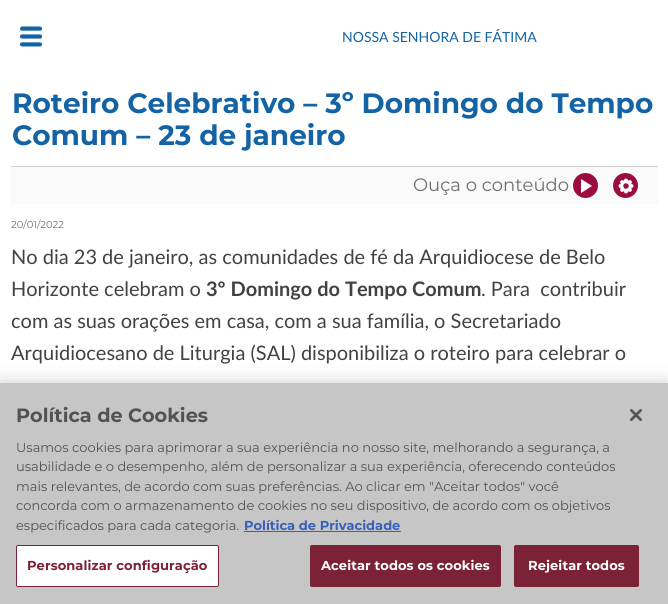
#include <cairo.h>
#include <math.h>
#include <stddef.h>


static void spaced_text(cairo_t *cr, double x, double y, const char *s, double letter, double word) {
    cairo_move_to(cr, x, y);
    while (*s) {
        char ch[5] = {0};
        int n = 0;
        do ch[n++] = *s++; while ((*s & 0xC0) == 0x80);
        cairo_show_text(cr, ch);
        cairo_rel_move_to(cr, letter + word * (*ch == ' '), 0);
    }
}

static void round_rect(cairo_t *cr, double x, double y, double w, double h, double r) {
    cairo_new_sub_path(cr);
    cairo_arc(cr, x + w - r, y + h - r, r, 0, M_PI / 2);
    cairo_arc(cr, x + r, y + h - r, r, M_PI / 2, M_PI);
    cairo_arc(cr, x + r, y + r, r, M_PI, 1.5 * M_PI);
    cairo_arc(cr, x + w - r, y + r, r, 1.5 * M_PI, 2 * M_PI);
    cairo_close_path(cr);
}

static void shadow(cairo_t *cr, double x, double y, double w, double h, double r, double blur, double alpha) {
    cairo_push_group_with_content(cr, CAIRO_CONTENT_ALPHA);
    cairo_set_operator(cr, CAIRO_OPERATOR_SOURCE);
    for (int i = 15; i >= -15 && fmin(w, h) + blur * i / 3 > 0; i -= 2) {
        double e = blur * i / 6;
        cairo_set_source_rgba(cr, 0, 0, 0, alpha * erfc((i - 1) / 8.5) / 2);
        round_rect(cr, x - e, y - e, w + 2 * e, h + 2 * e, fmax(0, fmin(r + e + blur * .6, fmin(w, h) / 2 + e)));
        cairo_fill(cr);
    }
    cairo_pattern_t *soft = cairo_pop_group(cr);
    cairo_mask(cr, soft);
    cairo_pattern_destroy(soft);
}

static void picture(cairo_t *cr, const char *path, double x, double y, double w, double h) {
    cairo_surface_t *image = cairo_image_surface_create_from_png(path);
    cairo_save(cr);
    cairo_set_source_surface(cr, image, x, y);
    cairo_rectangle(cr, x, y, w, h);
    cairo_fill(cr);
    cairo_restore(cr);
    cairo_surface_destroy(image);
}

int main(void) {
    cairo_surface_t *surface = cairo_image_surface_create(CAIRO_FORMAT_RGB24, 668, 604);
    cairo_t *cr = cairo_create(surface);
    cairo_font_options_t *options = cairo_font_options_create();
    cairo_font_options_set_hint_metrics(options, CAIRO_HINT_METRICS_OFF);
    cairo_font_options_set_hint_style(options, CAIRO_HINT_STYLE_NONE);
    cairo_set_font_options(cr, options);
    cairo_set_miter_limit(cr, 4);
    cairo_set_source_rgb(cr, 1, 1, 1);
    cairo_paint(cr);
    picture(cr, "img1.png", 20, 26, 22, 21);
    cairo_select_font_face(cr, "Lato", CAIRO_FONT_SLANT_NORMAL, CAIRO_FONT_WEIGHT_NORMAL);
    cairo_set_font_size(cr, 14);
    cairo_set_source_rgb(cr, 0.078, 0.388, 0.647);
    cairo_move_to(cr, 342, 42);
    cairo_show_text(cr, "NOSSA SENHORA DE FÁTIMA");
    cairo_set_source_rgb(cr, 0.816, 0.816, 0.816);
    cairo_rectangle(cr, 11, 166, 647, 1);
    cairo_fill(cr);
    cairo_select_font_face(cr, "Montserrat", CAIRO_FONT_SLANT_NORMAL, CAIRO_FONT_WEIGHT_BOLD);
    cairo_set_font_size(cr, 27.95);
    cairo_set_source_rgb(cr, 0.078, 0.388, 0.647);
    cairo_move_to(cr, 12, 113);
    cairo_show_text(cr, "Roteiro Celebrativo – 3º Domingo do Tempo");
    cairo_move_to(cr, 12, 145);
    cairo_show_text(cr, "Comum – 23 de janeiro");
    cairo_set_source_rgb(cr, 0.98, 0.98, 0.98);
    cairo_rectangle(cr, 11, 167, 647, 37);
    cairo_fill(cr);
    cairo_select_font_face(cr, "Montserrat", CAIRO_FONT_SLANT_NORMAL, CAIRO_FONT_WEIGHT_NORMAL);
    cairo_set_font_size(cr, 18);
    cairo_set_source_rgb(cr, 0.424, 0.431, 0.447);
    cairo_move_to(cr, 413, 191);
    cairo_show_text(cr, "Ouça o conteúdo");
    cairo_set_source_rgb(cr, 0.608, 0.051, 0.251);
    cairo_new_path(cr);
    cairo_arc(cr, 585.5, 185.5, 11.5, 0, 2 * M_PI);
    cairo_fill_preserve(cr);
    cairo_stroke(cr);
    cairo_set_source_rgb(cr, 1, 1, 1);
    cairo_new_path(cr);
    cairo_move_to(cr, 581, 193);
    cairo_line_to(cr, 581, 179);
    cairo_line_to(cr, 592, 186);
    cairo_close_path(cr);
    cairo_fill(cr);
    cairo_set_source_rgb(cr, 0.608, 0.051, 0.251);
    cairo_arc(cr, 625.5, 185.5, 11.5, 0, 2 * M_PI);
    cairo_fill_preserve(cr);
    cairo_stroke(cr);
    picture(cr, "img2.png", 618, 178, 16, 16);
    cairo_set_font_size(cr, 10);
    cairo_set_source_rgb(cr, 0.424, 0.431, 0.447);
    cairo_move_to(cr, 11, 228);
    cairo_show_text(cr, "20/01/2022");
    cairo_select_font_face(cr, "Lato", CAIRO_FONT_SLANT_NORMAL, CAIRO_FONT_WEIGHT_NORMAL);
    cairo_set_font_size(cr, 20);
    cairo_set_source_rgb(cr, 0.259, 0.259, 0.259);
    cairo_move_to(cr, 11, 264);
    cairo_show_text(cr, "No dia 23 de janeiro, as comunidades de fé da Arquidiocese de Belo");
    cairo_move_to(cr, 11, 296);
    cairo_show_text(cr, "Horizonte celebram o");
    cairo_select_font_face(cr, "Lato", CAIRO_FONT_SLANT_NORMAL, CAIRO_FONT_WEIGHT_BOLD);
    cairo_move_to(cr, 206, 296);
    cairo_show_text(cr, "3º Domingo do Tempo Comum");
    cairo_select_font_face(cr, "Lato", CAIRO_FONT_SLANT_NORMAL, CAIRO_FONT_WEIGHT_NORMAL);
    cairo_move_to(cr, 481, 296);
    cairo_show_text(cr, ". Para  contribuir");
    cairo_move_to(cr, 11, 328);
    cairo_show_text(cr, "com as suas orações em casa, com a sua família, o Secretariado");
    cairo_move_to(cr, 11, 360);
    cairo_show_text(cr, "Arquidiocesano de Liturgia (SAL) disponibiliza o roteiro para celebrar o");
    cairo_set_source_rgb(cr, 0, 0, 0);
    shadow(cr, 0, 383, 668, 221, 0, 9, 0.2);
    cairo_set_source_rgb(cr, 0.776, 0.776, 0.776);
    cairo_rectangle(cr, 0, 383, 668, 221);
    cairo_fill(cr);
    cairo_select_font_face(cr, "Montserrat", CAIRO_FONT_SLANT_NORMAL, CAIRO_FONT_WEIGHT_BOLD);
    cairo_set_font_size(cr, 19.25);
    cairo_set_source_rgb(cr, 0.322, 0.322, 0.318);
    cairo_move_to(cr, 16, 422);
    cairo_show_text(cr, "Política de Cookies");
    cairo_select_font_face(cr, "Montserrat", CAIRO_FONT_SLANT_NORMAL, CAIRO_FONT_WEIGHT_NORMAL);
    cairo_set_font_size(cr, 13);
    cairo_move_to(cr, 16, 452);
    cairo_show_text(cr, "Usamos cookies para aprimorar a sua experiência no nosso site, melhorando a segurança, a");
    cairo_move_to(cr, 16, 471);
    cairo_show_text(cr, "usabilidade e o desempenho, além de personalizar a sua experiência, oferecendo conteúdos");
    cairo_move_to(cr, 16, 491);
    cairo_show_text(cr, "mais relevantes, de acordo com suas preferências. Ao clicar em \"Aceitar todos\" você");
    cairo_move_to(cr, 16, 510);
    cairo_show_text(cr, "concorda com o armazenamento de cookies no seu dispositivo, de acordo com os objetivos");
    cairo_move_to(cr, 16, 530);
    cairo_show_text(cr, "especificados para cada categoria.");
    cairo_select_font_face(cr, "Montserrat", CAIRO_FONT_SLANT_NORMAL, CAIRO_FONT_WEIGHT_BOLD);
    cairo_set_source_rgb(cr, 0.22, 0.376, 0.745);
    cairo_move_to(cr, 244, 530);
    cairo_show_text(cr, "Política de Privacidade");
    cairo_rectangle(cr, 244, 531, 157, 1);
    cairo_fill(cr);
    cairo_set_source_rgb(cr, 1, 1, 1);
    round_rect(cr, 16.5, 545.5, 202, 41, 1.5);
    cairo_fill_preserve(cr);
    cairo_set_source_rgb(cr, 0.482, 0.133, 0.216);
    cairo_set_line_width(cr, 1);
    cairo_stroke(cr);
    spaced_text(cr, 27, 570, "Personalizar configuração", 0.1, 0);
    round_rect(cr, 310.5, 545.5, 190, 41, 1.5);
    cairo_fill_preserve(cr);
    cairo_stroke(cr);
    cairo_set_source_rgb(cr, 1, 1, 1);
    spaced_text(cr, 321, 570, "Aceitar todos os cookies", 0.1, 0);
    cairo_set_source_rgb(cr, 0.482, 0.133, 0.216);
    round_rect(cr, 514.5, 545.5, 124, 41, 1.5);
    cairo_fill_preserve(cr);
    cairo_stroke(cr);
    cairo_set_source_rgb(cr, 1, 1, 1);
    spaced_text(cr, 528, 570, "Rejeitar todos", 0.1, 0);
    picture(cr, "img3.png", 630, 409, 12, 12);
    cairo_surface_write_to_png(surface, "page.png");
    cairo_font_options_destroy(options);
    cairo_destroy(cr);
    cairo_surface_destroy(surface);
    return 0;
}
